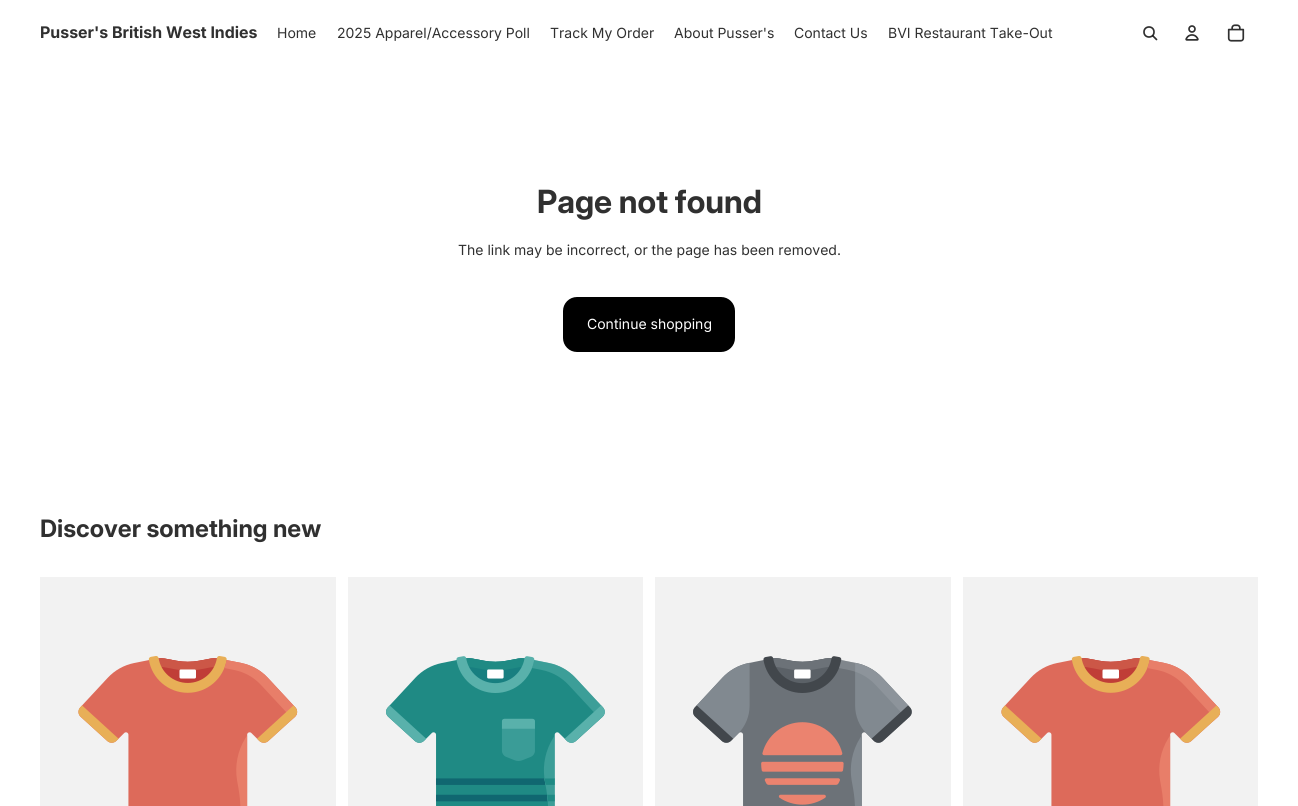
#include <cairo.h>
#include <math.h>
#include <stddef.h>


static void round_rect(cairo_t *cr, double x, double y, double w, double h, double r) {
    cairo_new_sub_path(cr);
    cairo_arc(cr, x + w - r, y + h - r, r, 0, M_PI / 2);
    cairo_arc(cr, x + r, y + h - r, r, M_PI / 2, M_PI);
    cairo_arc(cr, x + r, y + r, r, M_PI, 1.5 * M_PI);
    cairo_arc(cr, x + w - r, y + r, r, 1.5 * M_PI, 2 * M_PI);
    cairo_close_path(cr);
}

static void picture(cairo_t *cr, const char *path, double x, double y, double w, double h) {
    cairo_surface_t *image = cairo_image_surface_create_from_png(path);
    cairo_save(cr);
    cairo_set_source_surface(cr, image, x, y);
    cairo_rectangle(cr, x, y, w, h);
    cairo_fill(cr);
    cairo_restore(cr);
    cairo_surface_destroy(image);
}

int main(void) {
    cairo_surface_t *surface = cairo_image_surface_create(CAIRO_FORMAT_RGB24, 1298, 806);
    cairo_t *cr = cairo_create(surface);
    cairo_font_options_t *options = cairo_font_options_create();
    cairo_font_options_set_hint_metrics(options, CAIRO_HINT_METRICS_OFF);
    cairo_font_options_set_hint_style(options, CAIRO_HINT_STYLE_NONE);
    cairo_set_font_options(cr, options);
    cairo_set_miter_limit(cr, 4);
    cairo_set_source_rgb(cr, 1, 1, 1);
    cairo_paint(cr);
    cairo_select_font_face(cr, "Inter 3", CAIRO_FONT_SLANT_NORMAL, CAIRO_FONT_WEIGHT_BOLD);
    cairo_set_font_size(cr, 16);
    cairo_set_source_rgb(cr, 0.188, 0.188, 0.188);
    cairo_move_to(cr, 40, 38);
    cairo_show_text(cr, "Pusser's British West Indies");
    cairo_select_font_face(cr, "Inter", CAIRO_FONT_SLANT_NORMAL, CAIRO_FONT_WEIGHT_NORMAL);
    cairo_set_font_size(cr, 14);
    cairo_move_to(cr, 277, 38);
    cairo_show_text(cr, "Home");
    cairo_move_to(cr, 337, 38);
    cairo_show_text(cr, "2025 Apparel/Accessory Poll");
    cairo_move_to(cr, 550, 38);
    cairo_show_text(cr, "Track My Order");
    cairo_move_to(cr, 674, 38);
    cairo_show_text(cr, "About Pusser's");
    cairo_move_to(cr, 794, 38);
    cairo_show_text(cr, "Contact Us");
    cairo_move_to(cr, 888, 38);
    cairo_show_text(cr, "BVI Restaurant Take-Out");
    cairo_new_path(cr);
    cairo_arc(cr, 1149, 32, 5, 0, 2 * M_PI);
    cairo_set_line_width(cr, 1.7);
    cairo_stroke(cr);
    cairo_new_path(cr);
    cairo_move_to(cr, 1153, 36);
    cairo_line_to(cr, 1156.5, 39.5);
    cairo_set_source_rgba(cr, 0, 0, 0, 0.81);
    cairo_set_line_cap(cr, CAIRO_LINE_CAP_ROUND);
    cairo_set_line_join(cr, CAIRO_LINE_JOIN_ROUND);
    cairo_stroke(cr);
    picture(cr, "img1.png", 1185, 25, 14, 16);
    picture(cr, "img2.png", 1227, 24, 18, 18);
    cairo_select_font_face(cr, "Inter", CAIRO_FONT_SLANT_NORMAL, CAIRO_FONT_WEIGHT_BOLD);
    cairo_set_font_size(cr, 32);
    cairo_set_source_rgb(cr, 0.188, 0.188, 0.188);
    cairo_move_to(cr, 537, 213);
    cairo_show_text(cr, "Page not found");
    cairo_select_font_face(cr, "Inter", CAIRO_FONT_SLANT_NORMAL, CAIRO_FONT_WEIGHT_NORMAL);
    cairo_set_font_size(cr, 14);
    cairo_move_to(cr, 458, 255);
    cairo_show_text(cr, "The link may be incorrect, or the page has been removed.");
    cairo_set_source_rgb(cr, 0, 0, 0);
    round_rect(cr, 563, 297, 172, 55, 14);
    cairo_fill(cr);
    cairo_set_source_rgb(cr, 1, 1, 1);
    cairo_move_to(cr, 587, 329);
    cairo_show_text(cr, "Continue shopping");
    cairo_select_font_face(cr, "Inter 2", CAIRO_FONT_SLANT_NORMAL, CAIRO_FONT_WEIGHT_BOLD);
    cairo_set_font_size(cr, 24);
    cairo_set_source_rgb(cr, 0.188, 0.188, 0.188);
    cairo_move_to(cr, 40, 537);
    cairo_show_text(cr, "Discover something new");
    picture(cr, "img3.png", 40, 577, 296, 229);
    picture(cr, "img4.png", 348, 577, 295, 229);
    picture(cr, "img5.png", 655, 577, 296, 229);
    picture(cr, "img6.png", 963, 577, 295, 229);
    cairo_surface_write_to_png(surface, "page.png");
    cairo_font_options_destroy(options);
    cairo_destroy(cr);
    cairo_surface_destroy(surface);
    return 0;
}
